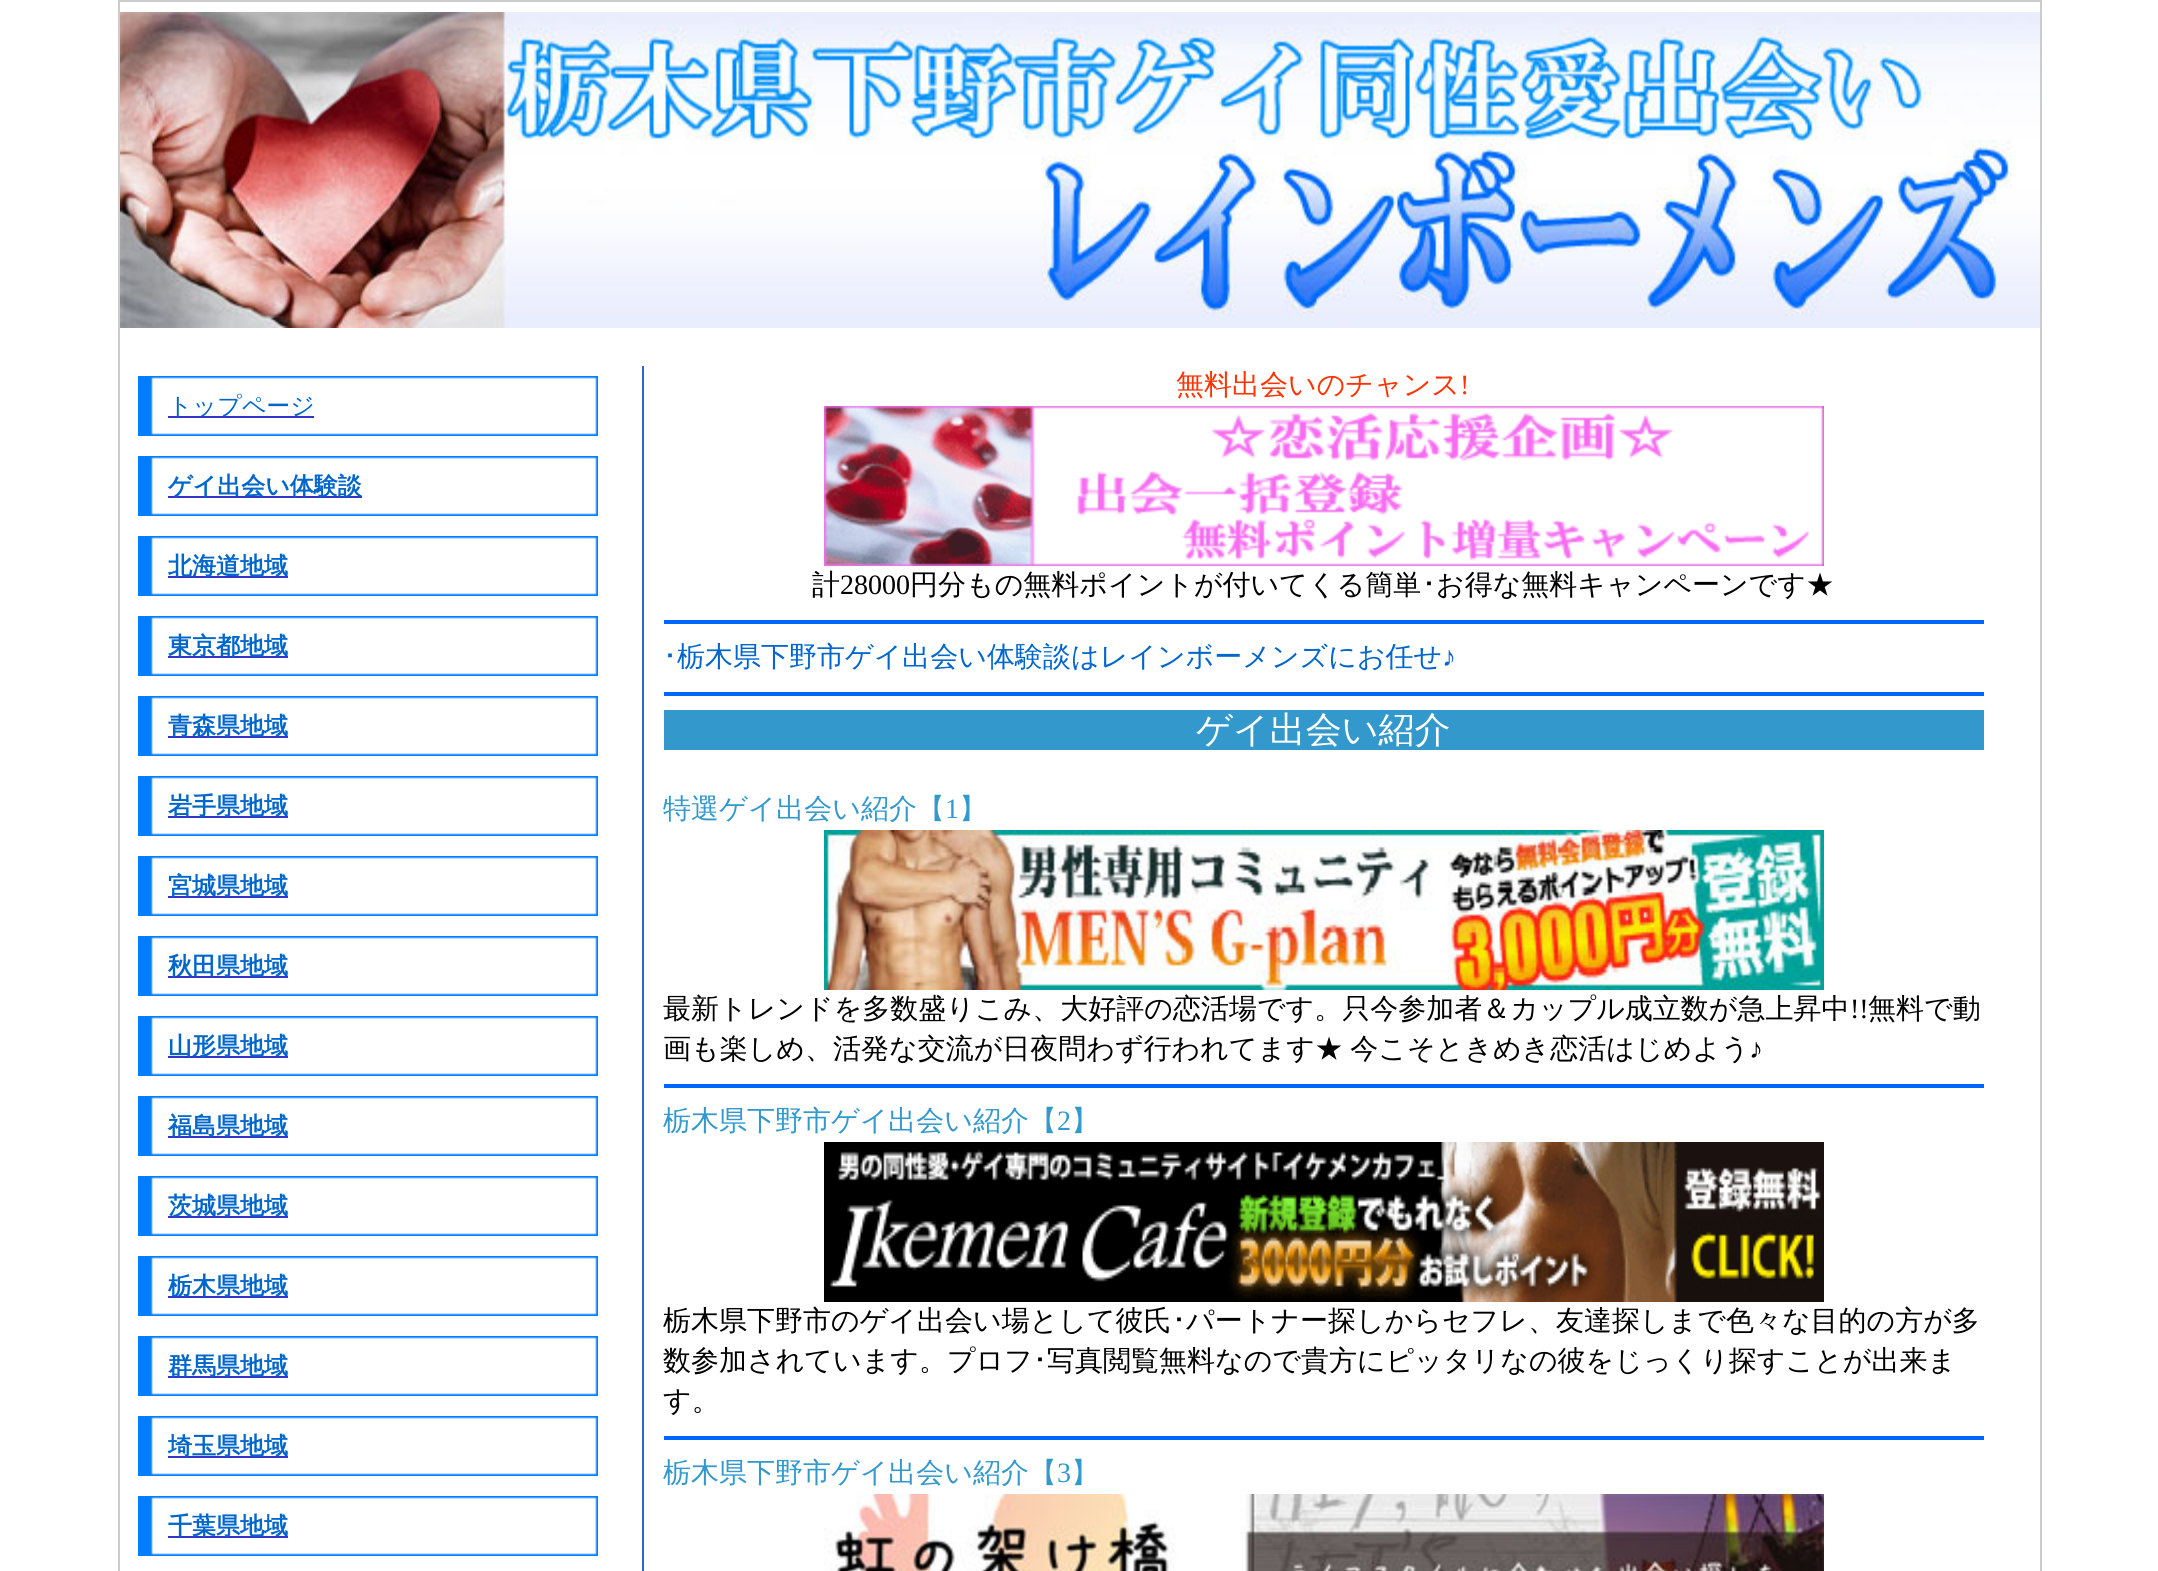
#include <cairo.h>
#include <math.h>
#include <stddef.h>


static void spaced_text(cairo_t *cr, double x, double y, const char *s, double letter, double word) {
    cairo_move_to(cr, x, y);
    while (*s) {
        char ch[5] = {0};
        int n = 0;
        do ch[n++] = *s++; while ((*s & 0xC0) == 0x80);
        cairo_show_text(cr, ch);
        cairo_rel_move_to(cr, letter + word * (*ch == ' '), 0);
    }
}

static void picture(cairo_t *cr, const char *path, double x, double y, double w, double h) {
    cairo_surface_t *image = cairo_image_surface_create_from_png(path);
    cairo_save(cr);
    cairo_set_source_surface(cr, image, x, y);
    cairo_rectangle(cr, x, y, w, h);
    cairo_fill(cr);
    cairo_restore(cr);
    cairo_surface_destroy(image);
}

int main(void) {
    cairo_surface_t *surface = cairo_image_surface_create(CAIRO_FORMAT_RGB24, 2158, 1571);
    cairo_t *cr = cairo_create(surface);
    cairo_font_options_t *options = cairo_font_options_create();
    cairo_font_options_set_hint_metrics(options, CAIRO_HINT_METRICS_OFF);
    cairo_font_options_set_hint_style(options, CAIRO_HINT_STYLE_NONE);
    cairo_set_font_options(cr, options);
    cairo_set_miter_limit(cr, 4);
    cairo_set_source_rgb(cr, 1, 1, 1);
    cairo_paint(cr);
    cairo_rectangle(cr, 119, 1, 1922, 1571);
    cairo_set_source_rgb(cr, 0.8, 0.8, 0.8);
    cairo_stroke(cr);
    picture(cr, "img1.png", 120, 12, 1920, 316);
    picture(cr, "img2.png", 138, 376, 460, 60);
    cairo_set_source_rgb(cr, 0.2, 0.2, 0.8);
    cairo_rectangle(cr, 168, 416, 146, 2);
    cairo_fill(cr);
    cairo_select_font_face(cr, "WenQuanYi Zen Hei Medium", CAIRO_FONT_SLANT_NORMAL, CAIRO_FONT_WEIGHT_NORMAL);
    cairo_set_font_size(cr, 24);
    cairo_set_source_rgb(cr, 0, 0.4, 0.8);
    cairo_move_to(cr, 168, 414);
    cairo_show_text(cr, "トップページ");
    picture(cr, "img2.png", 138, 456, 460, 60);
    cairo_set_source_rgb(cr, 0.2, 0.2, 0.8);
    cairo_rectangle(cr, 168, 496, 194, 2);
    cairo_fill(cr);
    cairo_select_font_face(cr, "WenQuanYi Zen Hei", CAIRO_FONT_SLANT_NORMAL, CAIRO_FONT_WEIGHT_BOLD);
    cairo_set_source_rgb(cr, 0, 0.4, 0.8);
    cairo_move_to(cr, 168, 494);
    cairo_show_text(cr, "ゲイ出会い体験談");
    picture(cr, "img2.png", 138, 536, 460, 60);
    cairo_set_source_rgb(cr, 0.2, 0.2, 0.8);
    cairo_rectangle(cr, 168, 576, 120, 2);
    cairo_fill(cr);
    cairo_set_source_rgb(cr, 0, 0.4, 0.8);
    cairo_move_to(cr, 168, 574);
    cairo_show_text(cr, "北海道地域");
    picture(cr, "img2.png", 138, 616, 460, 60);
    cairo_set_source_rgb(cr, 0.2, 0.2, 0.8);
    cairo_rectangle(cr, 168, 656, 120, 2);
    cairo_fill(cr);
    cairo_set_source_rgb(cr, 0, 0.4, 0.8);
    cairo_move_to(cr, 168, 654);
    cairo_show_text(cr, "東京都地域");
    picture(cr, "img2.png", 138, 696, 460, 60);
    cairo_set_source_rgb(cr, 0.2, 0.2, 0.8);
    cairo_rectangle(cr, 168, 736, 120, 2);
    cairo_fill(cr);
    cairo_set_source_rgb(cr, 0, 0.4, 0.8);
    cairo_move_to(cr, 168, 734);
    cairo_show_text(cr, "青森県地域");
    picture(cr, "img2.png", 138, 776, 460, 60);
    cairo_set_source_rgb(cr, 0.2, 0.2, 0.8);
    cairo_rectangle(cr, 168, 816, 120, 2);
    cairo_fill(cr);
    cairo_set_source_rgb(cr, 0, 0.4, 0.8);
    cairo_move_to(cr, 168, 814);
    cairo_show_text(cr, "岩手県地域");
    picture(cr, "img2.png", 138, 856, 460, 60);
    cairo_set_source_rgb(cr, 0.2, 0.2, 0.8);
    cairo_rectangle(cr, 168, 896, 120, 2);
    cairo_fill(cr);
    cairo_set_source_rgb(cr, 0, 0.4, 0.8);
    cairo_move_to(cr, 168, 894);
    cairo_show_text(cr, "宮城県地域");
    picture(cr, "img2.png", 138, 936, 460, 60);
    cairo_set_source_rgb(cr, 0.2, 0.2, 0.8);
    cairo_rectangle(cr, 168, 976, 120, 2);
    cairo_fill(cr);
    cairo_set_source_rgb(cr, 0, 0.4, 0.8);
    cairo_move_to(cr, 168, 974);
    cairo_show_text(cr, "秋田県地域");
    picture(cr, "img2.png", 138, 1016, 460, 60);
    cairo_set_source_rgb(cr, 0.2, 0.2, 0.8);
    cairo_rectangle(cr, 168, 1056, 120, 2);
    cairo_fill(cr);
    cairo_set_source_rgb(cr, 0, 0.4, 0.8);
    cairo_move_to(cr, 168, 1054);
    cairo_show_text(cr, "山形県地域");
    picture(cr, "img2.png", 138, 1096, 460, 60);
    cairo_set_source_rgb(cr, 0.2, 0.2, 0.8);
    cairo_rectangle(cr, 168, 1136, 120, 2);
    cairo_fill(cr);
    cairo_set_source_rgb(cr, 0, 0.4, 0.8);
    cairo_move_to(cr, 168, 1134);
    cairo_show_text(cr, "福島県地域");
    picture(cr, "img2.png", 138, 1176, 460, 60);
    cairo_set_source_rgb(cr, 0.2, 0.2, 0.8);
    cairo_rectangle(cr, 168, 1216, 120, 2);
    cairo_fill(cr);
    cairo_set_source_rgb(cr, 0, 0.4, 0.8);
    cairo_move_to(cr, 168, 1214);
    cairo_show_text(cr, "茨城県地域");
    picture(cr, "img2.png", 138, 1256, 460, 60);
    cairo_set_source_rgb(cr, 0.2, 0.2, 0.8);
    cairo_rectangle(cr, 168, 1296, 120, 2);
    cairo_fill(cr);
    cairo_set_source_rgb(cr, 0, 0.4, 0.8);
    cairo_move_to(cr, 168, 1294);
    cairo_show_text(cr, "栃木県地域");
    picture(cr, "img2.png", 138, 1336, 460, 60);
    cairo_set_source_rgb(cr, 0.2, 0.2, 0.8);
    cairo_rectangle(cr, 168, 1376, 120, 2);
    cairo_fill(cr);
    cairo_set_source_rgb(cr, 0, 0.4, 0.8);
    cairo_move_to(cr, 168, 1374);
    cairo_show_text(cr, "群馬県地域");
    picture(cr, "img2.png", 138, 1416, 460, 60);
    cairo_set_source_rgb(cr, 0.2, 0.2, 0.8);
    cairo_rectangle(cr, 168, 1456, 120, 2);
    cairo_fill(cr);
    cairo_set_source_rgb(cr, 0, 0.4, 0.8);
    cairo_move_to(cr, 168, 1454);
    cairo_show_text(cr, "埼玉県地域");
    picture(cr, "img2.png", 138, 1496, 460, 60);
    cairo_set_source_rgb(cr, 0.2, 0.2, 0.8);
    cairo_rectangle(cr, 168, 1536, 120, 2);
    cairo_fill(cr);
    cairo_set_source_rgb(cr, 0, 0.4, 0.8);
    cairo_move_to(cr, 168, 1534);
    cairo_show_text(cr, "千葉県地域");
    cairo_set_source_rgb(cr, 0.2, 0.4, 0.8);
    cairo_rectangle(cr, 642, 366, 2, 1205);
    cairo_fill(cr);
    cairo_select_font_face(cr, "WenQuanYi Zen Hei Medium", CAIRO_FONT_SLANT_NORMAL, CAIRO_FONT_WEIGHT_NORMAL);
    cairo_set_font_size(cr, 28);
    cairo_set_source_rgb(cr, 1, 0.2, 0);
    cairo_move_to(cr, 1176, 394);
    cairo_show_text(cr, "無料出会いのチャンス");
    cairo_select_font_face(cr, "Liberation Serif", CAIRO_FONT_SLANT_NORMAL, CAIRO_FONT_WEIGHT_NORMAL);
    cairo_move_to(cr, 1460, 394);
    cairo_show_text(cr, "!");
    picture(cr, "img3.png", 824, 406, 1000, 160);
    cairo_select_font_face(cr, "WenQuanYi Zen Hei Medium", CAIRO_FONT_SLANT_NORMAL, CAIRO_FONT_WEIGHT_NORMAL);
    cairo_set_source_rgb(cr, 0, 0, 0);
    cairo_move_to(cr, 812, 594);
    cairo_show_text(cr, "計");
    cairo_select_font_face(cr, "Liberation Serif", CAIRO_FONT_SLANT_NORMAL, CAIRO_FONT_WEIGHT_NORMAL);
    cairo_move_to(cr, 840, 594);
    cairo_show_text(cr, "28000");
    cairo_select_font_face(cr, "WenQuanYi Zen Hei Medium", CAIRO_FONT_SLANT_NORMAL, CAIRO_FONT_WEIGHT_NORMAL);
    cairo_move_to(cr, 910, 594);
    cairo_show_text(cr, "円分もの無料ポイントが付いてくる簡単");
    cairo_select_font_face(cr, "IPAGothic", CAIRO_FONT_SLANT_NORMAL, CAIRO_FONT_WEIGHT_NORMAL);
    cairo_move_to(cr, 1422, 594);
    cairo_show_text(cr, "･");
    cairo_select_font_face(cr, "WenQuanYi Zen Hei Medium", CAIRO_FONT_SLANT_NORMAL, CAIRO_FONT_WEIGHT_NORMAL);
    cairo_move_to(cr, 1436, 594);
    cairo_show_text(cr, "お得な無料キャンペーンです★");
    cairo_set_source_rgb(cr, 0, 0.4, 1);
    cairo_rectangle(cr, 664, 620, 1320, 4);
    cairo_fill(cr);
    cairo_select_font_face(cr, "IPAGothic", CAIRO_FONT_SLANT_NORMAL, CAIRO_FONT_WEIGHT_NORMAL);
    cairo_set_source_rgb(cr, 0, 0.4, 0.8);
    cairo_move_to(cr, 663, 666);
    cairo_show_text(cr, "･");
    cairo_select_font_face(cr, "WenQuanYi Zen Hei Medium", CAIRO_FONT_SLANT_NORMAL, CAIRO_FONT_WEIGHT_NORMAL);
    cairo_move_to(cr, 677, 666);
    cairo_show_text(cr, "栃木県下野市ゲイ出会い体験談はレインボーメンズにお任せ");
    cairo_select_font_face(cr, "Liberation Serif", CAIRO_FONT_SLANT_NORMAL, CAIRO_FONT_WEIGHT_NORMAL);
    cairo_move_to(cr, 1442, 666);
    cairo_show_text(cr, "♪");
    cairo_set_source_rgb(cr, 0, 0.4, 1);
    cairo_rectangle(cr, 664, 692, 1320, 4);
    cairo_fill(cr);
    cairo_set_source_rgb(cr, 0.2, 0.6, 0.8);
    cairo_rectangle(cr, 664, 710, 1320, 40);
    cairo_fill(cr);
    cairo_select_font_face(cr, "WenQuanYi Zen Hei Medium", CAIRO_FONT_SLANT_NORMAL, CAIRO_FONT_WEIGHT_NORMAL);
    cairo_set_font_size(cr, 36);
    cairo_set_source_rgb(cr, 1, 1, 1);
    cairo_move_to(cr, 1196, 742);
    cairo_show_text(cr, "ゲイ出会い紹介");
    cairo_set_font_size(cr, 28);
    cairo_set_source_rgb(cr, 0.2, 0.6, 0.8);
    cairo_move_to(cr, 663, 818);
    cairo_show_text(cr, "特選ゲイ出会い紹介【");
    cairo_select_font_face(cr, "Liberation Serif", CAIRO_FONT_SLANT_NORMAL, CAIRO_FONT_WEIGHT_NORMAL);
    cairo_move_to(cr, 945, 818);
    cairo_show_text(cr, "1");
    cairo_select_font_face(cr, "WenQuanYi Zen Hei Medium", CAIRO_FONT_SLANT_NORMAL, CAIRO_FONT_WEIGHT_NORMAL);
    cairo_move_to(cr, 959, 818);
    cairo_show_text(cr, "】");
    picture(cr, "img4.png", 824, 830, 1000, 160);
    cairo_set_source_rgb(cr, 0, 0, 0);
    cairo_move_to(cr, 663, 1018);
    cairo_show_text(cr, "最新トレンドを多数盛りこみ、大好評の恋活場です。只今参加者＆カップル成立数が急上昇中");
    cairo_select_font_face(cr, "Liberation Serif", CAIRO_FONT_SLANT_NORMAL, CAIRO_FONT_WEIGHT_NORMAL);
    cairo_move_to(cr, 1850, 1018);
    cairo_show_text(cr, "!!");
    cairo_select_font_face(cr, "WenQuanYi Zen Hei Medium", CAIRO_FONT_SLANT_NORMAL, CAIRO_FONT_WEIGHT_NORMAL);
    cairo_move_to(cr, 1868, 1018);
    cairo_show_text(cr, "無料で動");
    spaced_text(cr, 663, 1058, "画も楽しめ、活発な交流が日夜問わず行われてます★ 今こそときめき恋活はじめよう", 0, -1);
    cairo_select_font_face(cr, "Liberation Serif", CAIRO_FONT_SLANT_NORMAL, CAIRO_FONT_WEIGHT_NORMAL);
    cairo_move_to(cr, 1749, 1058);
    cairo_show_text(cr, "♪");
    cairo_set_source_rgb(cr, 0, 0.4, 1);
    cairo_rectangle(cr, 664, 1084, 1320, 4);
    cairo_fill(cr);
    cairo_select_font_face(cr, "WenQuanYi Zen Hei Medium", CAIRO_FONT_SLANT_NORMAL, CAIRO_FONT_WEIGHT_NORMAL);
    cairo_set_source_rgb(cr, 0.2, 0.6, 0.8);
    cairo_move_to(cr, 663, 1130);
    cairo_show_text(cr, "栃木県下野市ゲイ出会い紹介【");
    cairo_select_font_face(cr, "Liberation Serif", CAIRO_FONT_SLANT_NORMAL, CAIRO_FONT_WEIGHT_NORMAL);
    cairo_move_to(cr, 1057, 1130);
    cairo_show_text(cr, "2");
    cairo_select_font_face(cr, "WenQuanYi Zen Hei Medium", CAIRO_FONT_SLANT_NORMAL, CAIRO_FONT_WEIGHT_NORMAL);
    cairo_move_to(cr, 1071, 1130);
    cairo_show_text(cr, "】");
    picture(cr, "img5.png", 824, 1142, 1000, 160);
    cairo_set_source_rgb(cr, 0, 0, 0);
    cairo_move_to(cr, 663, 1330);
    cairo_show_text(cr, "栃木県下野市のゲイ出会い場として彼氏");
    cairo_select_font_face(cr, "IPAGothic", CAIRO_FONT_SLANT_NORMAL, CAIRO_FONT_WEIGHT_NORMAL);
    cairo_move_to(cr, 1172, 1330);
    cairo_show_text(cr, "･");
    cairo_select_font_face(cr, "WenQuanYi Zen Hei Medium", CAIRO_FONT_SLANT_NORMAL, CAIRO_FONT_WEIGHT_NORMAL);
    cairo_move_to(cr, 1186, 1330);
    cairo_show_text(cr, "パートナー探しからセフレ、友達探しまで色々な目的の方が多");
    cairo_move_to(cr, 663, 1370);
    cairo_show_text(cr, "数参加されています。プロフ");
    cairo_select_font_face(cr, "IPAGothic", CAIRO_FONT_SLANT_NORMAL, CAIRO_FONT_WEIGHT_NORMAL);
    cairo_move_to(cr, 1033, 1370);
    cairo_show_text(cr, "･");
    cairo_select_font_face(cr, "WenQuanYi Zen Hei Medium", CAIRO_FONT_SLANT_NORMAL, CAIRO_FONT_WEIGHT_NORMAL);
    cairo_move_to(cr, 1047, 1370);
    cairo_show_text(cr, "写真閲覧無料なので貴方にピッタリなの彼をじっくり探すことが出来ま");
    cairo_move_to(cr, 663, 1410);
    cairo_show_text(cr, "す。");
    cairo_set_source_rgb(cr, 0, 0.4, 1);
    cairo_rectangle(cr, 664, 1436, 1320, 4);
    cairo_fill(cr);
    cairo_set_source_rgb(cr, 0.2, 0.6, 0.8);
    cairo_move_to(cr, 663, 1482);
    cairo_show_text(cr, "栃木県下野市ゲイ出会い紹介【");
    cairo_select_font_face(cr, "Liberation Serif", CAIRO_FONT_SLANT_NORMAL, CAIRO_FONT_WEIGHT_NORMAL);
    cairo_move_to(cr, 1057, 1482);
    cairo_show_text(cr, "3");
    cairo_select_font_face(cr, "WenQuanYi Zen Hei Medium", CAIRO_FONT_SLANT_NORMAL, CAIRO_FONT_WEIGHT_NORMAL);
    cairo_move_to(cr, 1071, 1482);
    cairo_show_text(cr, "】");
    picture(cr, "img6.png", 824, 1494, 1000, 77);
    cairo_surface_write_to_png(surface, "page.png");
    cairo_font_options_destroy(options);
    cairo_destroy(cr);
    cairo_surface_destroy(surface);
    return 0;
}
